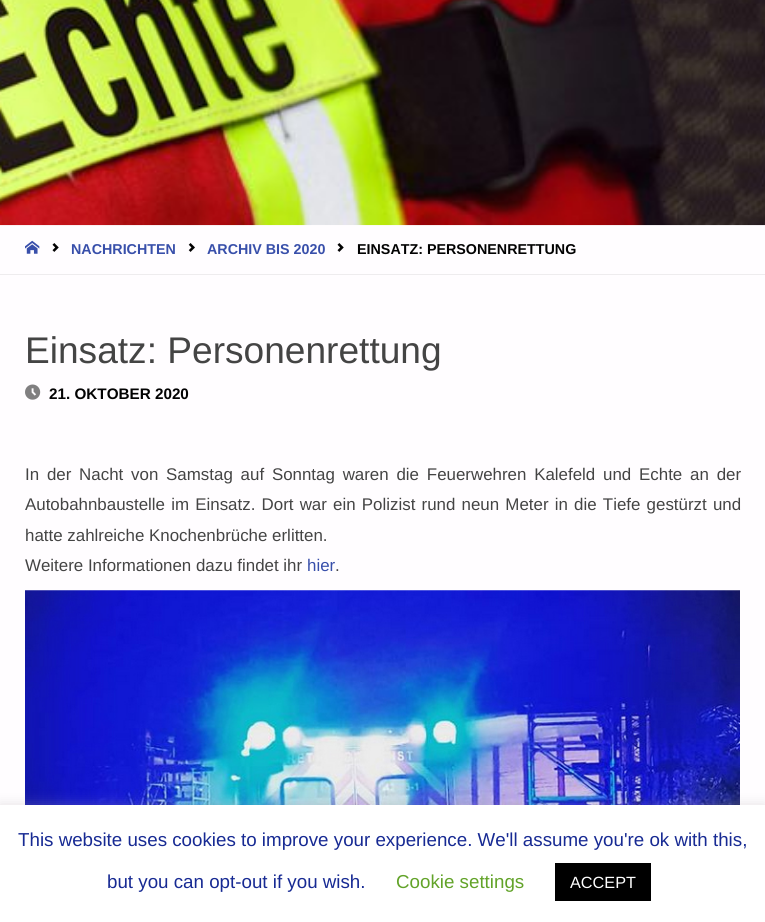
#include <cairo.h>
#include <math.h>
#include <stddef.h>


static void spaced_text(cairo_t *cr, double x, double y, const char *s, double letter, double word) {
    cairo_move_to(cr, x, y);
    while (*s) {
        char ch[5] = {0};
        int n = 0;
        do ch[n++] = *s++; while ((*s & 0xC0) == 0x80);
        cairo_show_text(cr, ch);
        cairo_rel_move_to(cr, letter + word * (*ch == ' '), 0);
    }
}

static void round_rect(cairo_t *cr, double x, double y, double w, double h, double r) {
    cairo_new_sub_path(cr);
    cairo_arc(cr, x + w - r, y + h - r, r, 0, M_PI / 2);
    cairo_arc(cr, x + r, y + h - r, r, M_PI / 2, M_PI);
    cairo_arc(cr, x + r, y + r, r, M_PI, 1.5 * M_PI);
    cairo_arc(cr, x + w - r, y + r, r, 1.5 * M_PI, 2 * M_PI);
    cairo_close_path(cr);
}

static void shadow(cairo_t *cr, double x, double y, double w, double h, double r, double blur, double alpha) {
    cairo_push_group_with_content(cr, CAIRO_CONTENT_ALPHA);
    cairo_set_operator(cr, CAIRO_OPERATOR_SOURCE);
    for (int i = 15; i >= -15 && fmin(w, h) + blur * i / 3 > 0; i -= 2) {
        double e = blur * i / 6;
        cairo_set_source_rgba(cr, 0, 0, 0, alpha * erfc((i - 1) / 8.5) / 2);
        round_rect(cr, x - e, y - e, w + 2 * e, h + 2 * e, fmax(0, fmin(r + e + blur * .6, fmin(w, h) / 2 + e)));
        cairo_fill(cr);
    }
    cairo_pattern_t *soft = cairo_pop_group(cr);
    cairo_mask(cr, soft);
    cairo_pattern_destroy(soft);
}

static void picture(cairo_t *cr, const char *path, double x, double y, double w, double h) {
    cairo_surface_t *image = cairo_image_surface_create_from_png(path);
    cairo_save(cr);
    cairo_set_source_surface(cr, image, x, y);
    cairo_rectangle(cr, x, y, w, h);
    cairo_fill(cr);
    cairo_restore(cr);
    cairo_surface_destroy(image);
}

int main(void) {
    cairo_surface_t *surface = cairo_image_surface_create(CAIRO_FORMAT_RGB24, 765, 922);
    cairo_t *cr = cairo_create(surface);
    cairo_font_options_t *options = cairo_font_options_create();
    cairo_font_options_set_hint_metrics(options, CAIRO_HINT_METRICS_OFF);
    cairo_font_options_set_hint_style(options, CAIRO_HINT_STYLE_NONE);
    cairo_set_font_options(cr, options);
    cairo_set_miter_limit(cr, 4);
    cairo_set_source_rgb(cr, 1, 0.992, 1);
    cairo_paint(cr);
    picture(cr, "img1.png", 0, 0, 765, 226);
    cairo_set_source_rgb(cr, 0.933, 0.925, 0.933);
    cairo_rectangle(cr, 0, 274, 765, 1);
    cairo_fill(cr);
    picture(cr, "img2.png", 25, 240, 15, 14);
    picture(cr, "img3.png", 52, 243, 7, 9);
    cairo_select_font_face(cr, "Liberation Sans", CAIRO_FONT_SLANT_NORMAL, CAIRO_FONT_WEIGHT_BOLD);
    cairo_set_font_size(cr, 14.3);
    cairo_set_source_rgb(cr, 0.22, 0.31, 0.667);
    cairo_move_to(cr, 71, 254);
    cairo_show_text(cr, "NACHRICHTEN");
    picture(cr, "img4.png", 188, 243, 7, 9);
    cairo_move_to(cr, 207, 254);
    cairo_show_text(cr, "ARCHIV BIS 2020");
    picture(cr, "img3.png", 337, 243, 7, 9);
    cairo_set_source_rgb(cr, 0.008, 0.008, 0.008);
    cairo_move_to(cr, 357, 254);
    cairo_show_text(cr, "EINSATZ: PERSONENRETTUNG");
    cairo_select_font_face(cr, "Liberation Sans", CAIRO_FONT_SLANT_NORMAL, CAIRO_FONT_WEIGHT_NORMAL);
    cairo_set_font_size(cr, 37.1);
    cairo_set_source_rgb(cr, 0.267, 0.267, 0.267);
    cairo_move_to(cr, 25, 363);
    cairo_show_text(cr, "Einsatz: Personenrettung");
    picture(cr, "img5.png", 25, 384, 16, 16);
    cairo_select_font_face(cr, "Liberation Sans", CAIRO_FONT_SLANT_NORMAL, CAIRO_FONT_WEIGHT_BOLD);
    cairo_set_font_size(cr, 15.25);
    cairo_set_source_rgb(cr, 0.008, 0.008, 0.008);
    cairo_move_to(cr, 49, 399);
    cairo_show_text(cr, "21. OKTOBER 2020");
    cairo_select_font_face(cr, "Liberation Sans", CAIRO_FONT_SLANT_NORMAL, CAIRO_FONT_WEIGHT_NORMAL);
    cairo_set_font_size(cr, 16.9);
    cairo_set_source_rgb(cr, 0.267, 0.267, 0.267);
    spaced_text(cr, 25, 480, "In der Nacht von Samstag auf Sonntag waren die Feuerwehren Kalefeld und Echte an der", 0, 3.1);
    spaced_text(cr, 25, 510, "Autobahnbaustelle im Einsatz. Dort war ein Polizist rund neun Meter in die Tiefe gestürzt und", 0, 1.5);
    cairo_move_to(cr, 25, 541);
    cairo_show_text(cr, "hatte zahlreiche Knochenbrüche erlitten.");
    cairo_move_to(cr, 25, 571);
    cairo_show_text(cr, "Weitere Informationen dazu findet ihr");
    cairo_set_source_rgb(cr, 0.22, 0.31, 0.667);
    cairo_move_to(cr, 307, 571);
    cairo_show_text(cr, "hier");
    cairo_set_source_rgb(cr, 0.267, 0.267, 0.267);
    cairo_move_to(cr, 335, 571);
    cairo_show_text(cr, ".");
    picture(cr, "img6.png", 25, 590, 715, 215);
    cairo_set_source_rgb(cr, 0.675, 0.671, 0.671);
    shadow(cr, 0, 804, 765, 117, 0, 6, 0.3);
    cairo_set_source_rgb(cr, 1, 1, 1);
    cairo_rectangle(cr, 0, 805, 765, 117);
    cairo_fill(cr);
    cairo_set_font_size(cr, 18.75);
    cairo_set_source_rgb(cr, 0.09, 0.165, 0.576);
    cairo_move_to(cr, 18, 846);
    cairo_show_text(cr, "This website uses cookies to improve your experience. We'll assume you're ok with this,");
    cairo_move_to(cr, 107, 888);
    cairo_show_text(cr, "but you can opt-out if you wish.");
    cairo_set_source_rgb(cr, 0.384, 0.639, 0.161);
    cairo_move_to(cr, 396, 888);
    cairo_show_text(cr, "Cookie settings");
    cairo_set_source_rgb(cr, 0, 0, 0);
    cairo_rectangle(cr, 555, 863, 96, 38);
    cairo_fill(cr);
    cairo_set_font_size(cr, 16.25);
    cairo_set_source_rgb(cr, 1, 1, 1);
    cairo_move_to(cr, 570, 888);
    cairo_show_text(cr, "ACCEPT");
    cairo_surface_write_to_png(surface, "page.png");
    cairo_font_options_destroy(options);
    cairo_destroy(cr);
    cairo_surface_destroy(surface);
    return 0;
}
